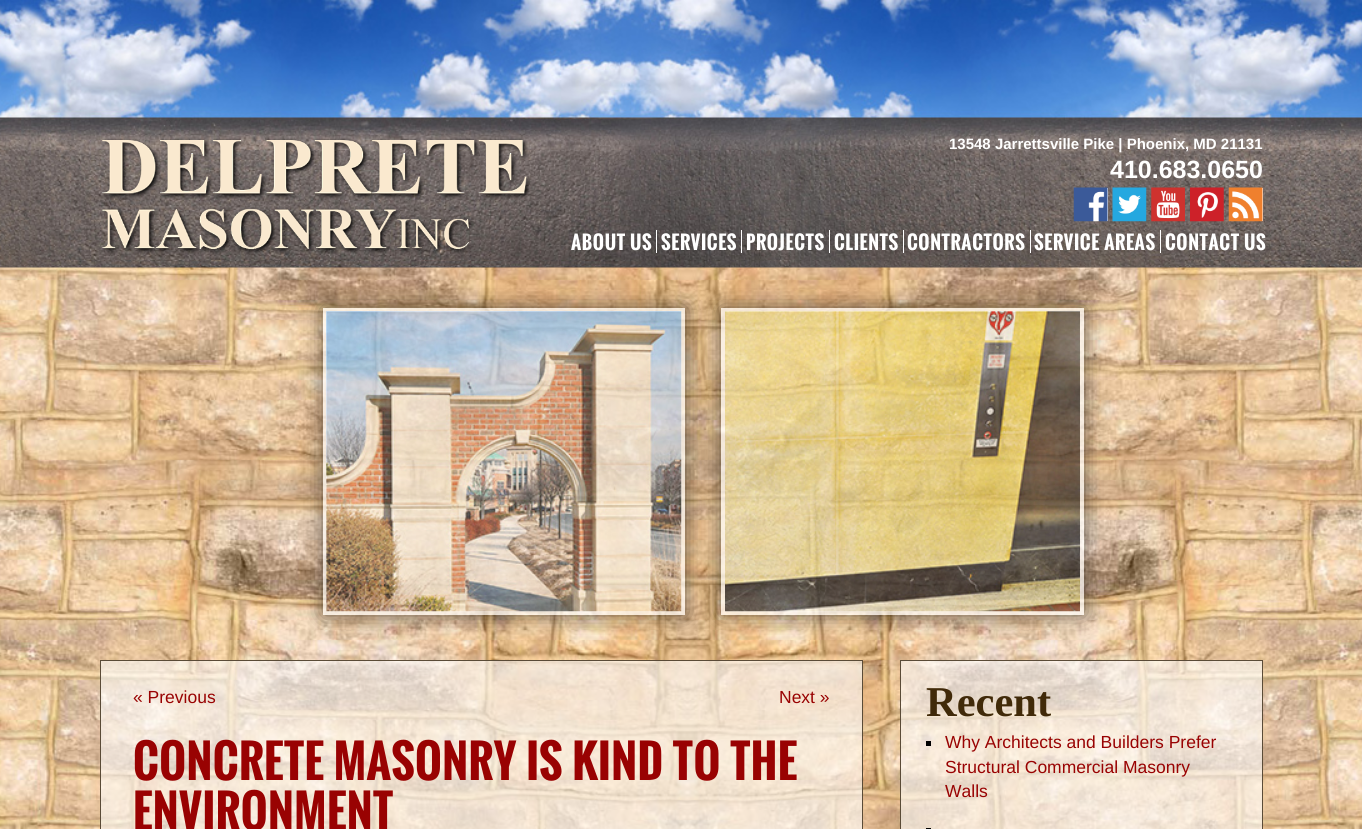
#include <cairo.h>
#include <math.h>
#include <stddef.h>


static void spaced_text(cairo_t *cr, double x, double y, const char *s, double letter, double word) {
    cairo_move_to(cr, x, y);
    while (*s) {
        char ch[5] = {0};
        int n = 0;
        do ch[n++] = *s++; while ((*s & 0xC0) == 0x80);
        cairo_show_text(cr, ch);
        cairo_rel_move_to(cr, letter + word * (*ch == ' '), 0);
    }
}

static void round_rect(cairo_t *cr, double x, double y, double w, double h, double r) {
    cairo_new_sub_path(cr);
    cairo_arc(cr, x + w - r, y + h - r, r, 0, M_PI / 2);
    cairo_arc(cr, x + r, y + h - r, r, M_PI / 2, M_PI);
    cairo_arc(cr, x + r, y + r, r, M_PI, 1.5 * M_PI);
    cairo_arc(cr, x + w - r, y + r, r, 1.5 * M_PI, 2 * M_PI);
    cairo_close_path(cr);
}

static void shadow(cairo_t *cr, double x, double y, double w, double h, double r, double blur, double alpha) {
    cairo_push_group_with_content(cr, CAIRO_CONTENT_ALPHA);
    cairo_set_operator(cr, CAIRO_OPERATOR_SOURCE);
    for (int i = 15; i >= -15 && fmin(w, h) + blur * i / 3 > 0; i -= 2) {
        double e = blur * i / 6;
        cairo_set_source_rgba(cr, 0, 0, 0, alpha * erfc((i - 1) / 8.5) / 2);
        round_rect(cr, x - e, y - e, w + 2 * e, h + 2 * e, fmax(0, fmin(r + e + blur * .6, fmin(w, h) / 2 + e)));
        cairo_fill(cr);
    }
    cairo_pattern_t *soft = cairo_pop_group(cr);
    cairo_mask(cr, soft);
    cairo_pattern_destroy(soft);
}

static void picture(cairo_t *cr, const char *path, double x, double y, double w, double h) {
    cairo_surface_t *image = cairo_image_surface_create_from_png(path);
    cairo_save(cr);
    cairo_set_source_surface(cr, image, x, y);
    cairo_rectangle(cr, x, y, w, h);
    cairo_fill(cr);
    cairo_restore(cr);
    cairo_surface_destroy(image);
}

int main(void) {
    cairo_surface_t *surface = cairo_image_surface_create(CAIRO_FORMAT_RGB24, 1362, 829);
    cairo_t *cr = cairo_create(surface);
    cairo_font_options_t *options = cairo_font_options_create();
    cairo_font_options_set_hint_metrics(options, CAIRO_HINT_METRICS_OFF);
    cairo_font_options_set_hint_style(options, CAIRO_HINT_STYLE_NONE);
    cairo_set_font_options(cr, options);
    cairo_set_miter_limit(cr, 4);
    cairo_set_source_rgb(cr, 1, 1, 1);
    cairo_paint(cr);
    picture(cr, "img1.png", 0, 267, 1362, 562);
    picture(cr, "img2.png", 0, 0, 1362, 268);
    picture(cr, "img3.png", 102, 138, 430, 116);
    cairo_select_font_face(cr, "Liberation Sans", CAIRO_FONT_SLANT_NORMAL, CAIRO_FONT_WEIGHT_BOLD);
    cairo_set_font_size(cr, 15);
    cairo_set_source_rgb(cr, 1, 1, 1);
    cairo_move_to(cr, 949, 149);
    cairo_show_text(cr, "13548 Jarrettsville Pike | Phoenix, MD 21131");
    cairo_set_font_size(cr, 25);
    cairo_move_to(cr, 1110, 178);
    cairo_show_text(cr, "410.683.0650");
    cairo_rectangle(cr, 1107, 188, 1, 33);
    cairo_fill(cr);
    picture(cr, "img4.png", 1073, 187, 35, 35);
    picture(cr, "img5.png", 1112, 187, 35, 35);
    picture(cr, "img6.png", 1151, 187, 34, 35);
    picture(cr, "img7.png", 1190, 187, 34, 35);
    cairo_rectangle(cr, 1262, 188, 1, 33);
    cairo_fill(cr);
    picture(cr, "img8.png", 1228, 187, 35, 35);
    cairo_select_font_face(cr, "Oswald", CAIRO_FONT_SLANT_NORMAL, CAIRO_FONT_WEIGHT_BOLD);
    cairo_set_font_size(cr, 18.75);
    spaced_text(cr, 571, 250, "ABOUT US", 0.6, 0);
    cairo_rectangle(cr, 656, 230, 1, 23);
    cairo_fill(cr);
    spaced_text(cr, 661, 250, "SERVICES", 0.6, 0);
    cairo_rectangle(cr, 741, 230, 1, 23);
    cairo_fill(cr);
    spaced_text(cr, 746, 250, "PROJECTS", 0.6, 0);
    cairo_rectangle(cr, 829, 230, 1, 23);
    cairo_fill(cr);
    spaced_text(cr, 834, 250, "CLIENTS", 0.6, 0);
    cairo_rectangle(cr, 903, 230, 1, 23);
    cairo_fill(cr);
    spaced_text(cr, 907, 250, "CONTRACTORS", 0.6, 0);
    cairo_rectangle(cr, 1030, 230, 1, 23);
    cairo_fill(cr);
    spaced_text(cr, 1034, 250, "SERVICE AREAS", 0.6, 0);
    cairo_rectangle(cr, 1160, 230, 1, 23);
    cairo_fill(cr);
    spaced_text(cr, 1165, 250, "CONTACT US", 0.6, 0);
    cairo_save(cr);
    cairo_set_fill_rule(cr, CAIRO_FILL_RULE_EVEN_ODD);
    cairo_new_path(cr);
    cairo_move_to(cr, 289, 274);
    cairo_line_to(cr, 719, 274);
    cairo_line_to(cr, 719, 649);
    cairo_line_to(cr, 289, 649);
    cairo_close_path(cr);
    cairo_move_to(cr, 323, 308);
    cairo_line_to(cr, 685, 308);
    cairo_line_to(cr, 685, 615);
    cairo_line_to(cr, 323, 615);
    cairo_close_path(cr);
    cairo_clip(cr);
    cairo_set_source_rgb(cr, 0, 0, 0);
    shadow(cr, 323, 308, 362, 307, 0, 11, 0.61);
    cairo_restore(cr);
    cairo_rectangle(cr, 325, 310, 358, 303);
    cairo_set_source_rgba(cr, 1, 1, 1, 0.67);
    cairo_set_line_width(cr, 4);
    cairo_stroke(cr);
    picture(cr, "img9.png", 326, 311, 356, 301);
    cairo_save(cr);
    cairo_set_fill_rule(cr, CAIRO_FILL_RULE_EVEN_ODD);
    cairo_new_path(cr);
    cairo_move_to(cr, 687, 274);
    cairo_line_to(cr, 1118, 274);
    cairo_line_to(cr, 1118, 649);
    cairo_line_to(cr, 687, 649);
    cairo_close_path(cr);
    cairo_move_to(cr, 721, 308);
    cairo_line_to(cr, 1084, 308);
    cairo_line_to(cr, 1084, 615);
    cairo_line_to(cr, 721, 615);
    cairo_close_path(cr);
    cairo_clip(cr);
    cairo_set_source_rgb(cr, 0, 0, 0);
    shadow(cr, 721, 308, 363, 307, 0, 11, 0.61);
    cairo_restore(cr);
    cairo_rectangle(cr, 723, 310, 359, 303);
    cairo_stroke(cr);
    picture(cr, "img10.png", 725, 311, 355, 301);
    cairo_set_source_rgba(cr, 1, 1, 1, 0.6);
    cairo_rectangle(cr, 100.5, 660.5, 762, 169);
    cairo_fill_preserve(cr);
    cairo_set_source_rgb(cr, 0.353, 0.294, 0.216);
    cairo_set_line_width(cr, 1);
    cairo_stroke(cr);
    cairo_select_font_face(cr, "Liberation Sans", CAIRO_FONT_SLANT_NORMAL, CAIRO_FONT_WEIGHT_NORMAL);
    cairo_set_font_size(cr, 17.5);
    cairo_set_source_rgb(cr, 0.6, 0.008, 0.008);
    cairo_move_to(cr, 133, 703);
    cairo_show_text(cr, "« Previous");
    cairo_move_to(cr, 779, 703);
    cairo_show_text(cr, "Next »");
    cairo_select_font_face(cr, "Oswald", CAIRO_FONT_SLANT_NORMAL, CAIRO_FONT_WEIGHT_BOLD);
    cairo_set_font_size(cr, 45);
    spaced_text(cr, 133, 780, "CONCRETE MASONRY IS KIND TO THE", 0.45, 0);
    spaced_text(cr, 133, 830, "ENVIRONMENT", 0.45, 0);
    cairo_set_source_rgba(cr, 1, 1, 1, 0.6);
    cairo_rectangle(cr, 900.5, 660.5, 362, 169);
    cairo_fill_preserve(cr);
    cairo_set_source_rgb(cr, 0.353, 0.294, 0.216);
    cairo_stroke(cr);
    cairo_select_font_face(cr, "Liberation Serif", CAIRO_FONT_SLANT_NORMAL, CAIRO_FONT_WEIGHT_BOLD);
    cairo_set_font_size(cr, 42.5);
    cairo_set_source_rgb(cr, 0.255, 0.165, 0.039);
    cairo_move_to(cr, 926, 716);
    cairo_show_text(cr, "Recent");
    cairo_set_source_rgb(cr, 0, 0, 0);
    cairo_rectangle(cr, 926, 741, 5, 5);
    cairo_fill(cr);
    cairo_select_font_face(cr, "Liberation Sans", CAIRO_FONT_SLANT_NORMAL, CAIRO_FONT_WEIGHT_NORMAL);
    cairo_set_font_size(cr, 17.5);
    cairo_set_source_rgb(cr, 0.6, 0.008, 0.008);
    cairo_move_to(cr, 945, 748);
    cairo_show_text(cr, "Why Architects and Builders Prefer");
    cairo_move_to(cr, 945, 773);
    cairo_show_text(cr, "Structural Commercial Masonry");
    cairo_move_to(cr, 945, 797);
    cairo_show_text(cr, "Walls");
    cairo_set_source_rgb(cr, 0, 0, 0);
    cairo_rectangle(cr, 926, 828, 5, 1);
    cairo_fill(cr);
    cairo_surface_write_to_png(surface, "page.png");
    cairo_font_options_destroy(options);
    cairo_destroy(cr);
    cairo_surface_destroy(surface);
    return 0;
}
